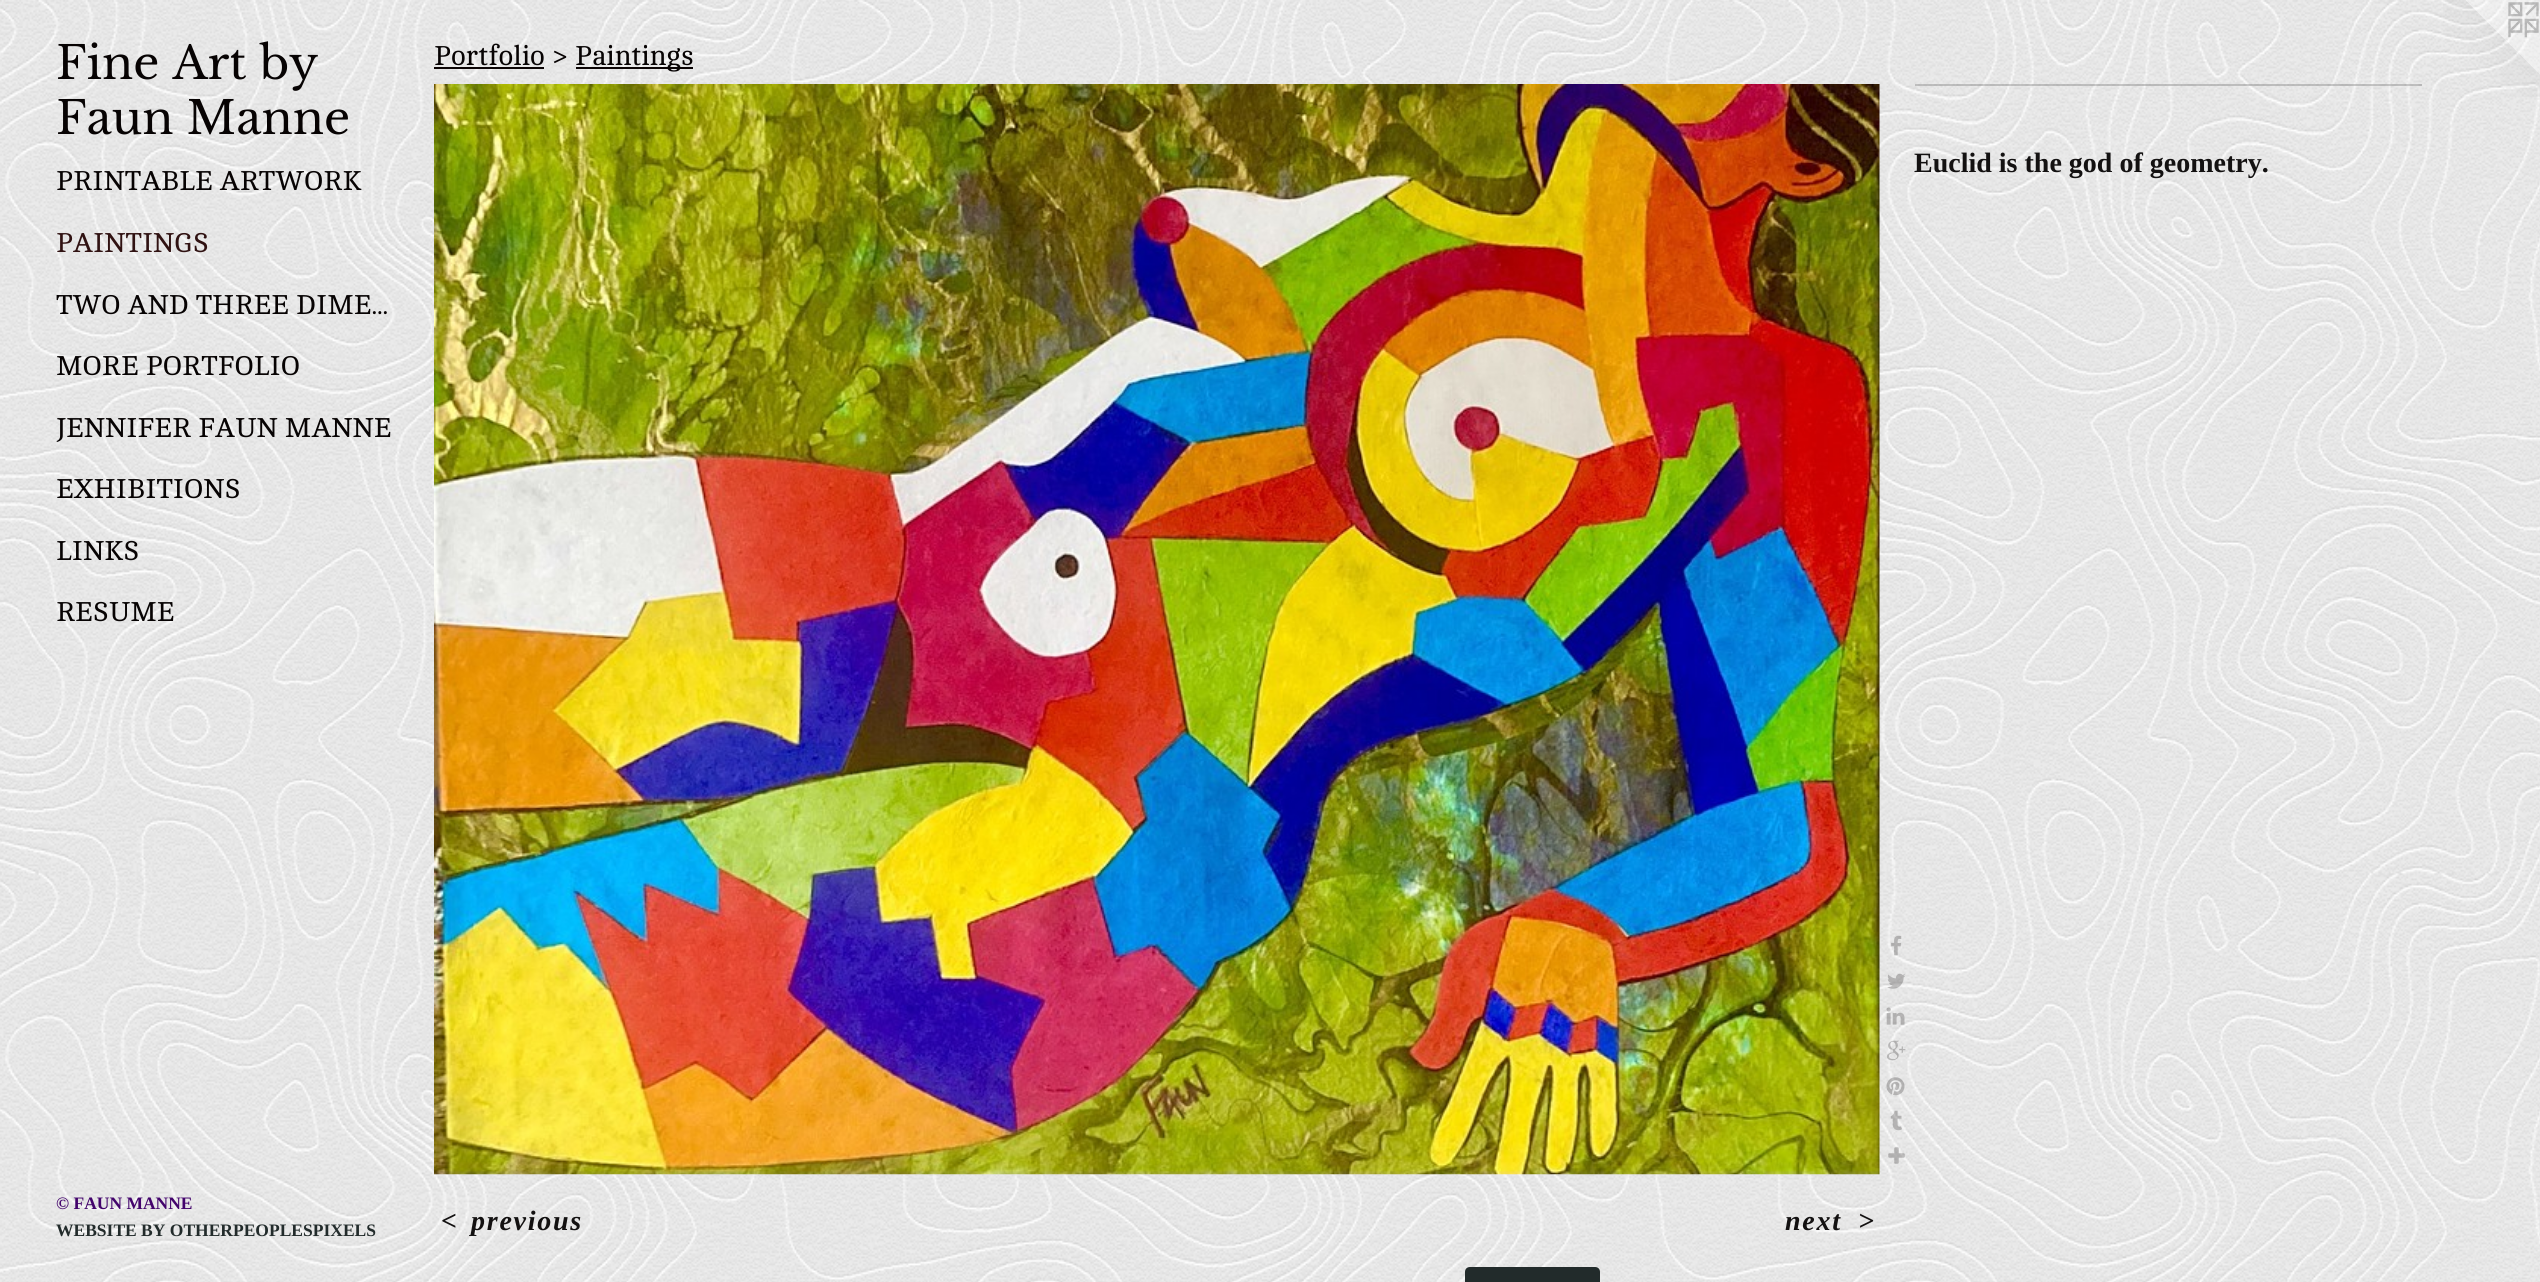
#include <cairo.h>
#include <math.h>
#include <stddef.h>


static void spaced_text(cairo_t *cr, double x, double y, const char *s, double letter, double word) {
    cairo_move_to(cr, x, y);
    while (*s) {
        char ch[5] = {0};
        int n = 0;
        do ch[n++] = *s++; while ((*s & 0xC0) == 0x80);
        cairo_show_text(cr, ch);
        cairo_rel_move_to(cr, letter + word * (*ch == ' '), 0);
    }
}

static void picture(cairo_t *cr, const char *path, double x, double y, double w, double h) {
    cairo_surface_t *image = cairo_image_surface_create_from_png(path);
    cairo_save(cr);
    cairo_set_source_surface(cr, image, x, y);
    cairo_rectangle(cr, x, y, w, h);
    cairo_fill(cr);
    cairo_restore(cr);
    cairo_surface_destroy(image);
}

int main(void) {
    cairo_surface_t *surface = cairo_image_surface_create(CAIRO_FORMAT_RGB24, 2540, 1282);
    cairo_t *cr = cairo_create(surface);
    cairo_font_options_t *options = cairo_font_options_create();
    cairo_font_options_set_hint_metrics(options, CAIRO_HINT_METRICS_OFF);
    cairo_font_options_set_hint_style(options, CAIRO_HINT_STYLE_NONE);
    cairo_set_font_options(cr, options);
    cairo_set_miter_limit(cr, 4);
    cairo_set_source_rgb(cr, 1, 1, 1);
    cairo_paint(cr);
    picture(cr, "img1.png", 0, 0, 2540, 1282);
    cairo_select_font_face(cr, "Libre Baskerville", CAIRO_FONT_SLANT_NORMAL, CAIRO_FONT_WEIGHT_NORMAL);
    cairo_set_font_size(cr, 45.5);
    cairo_set_source_rgb(cr, 0.031, 0.012, 0.012);
    cairo_move_to(cr, 56, 79);
    cairo_show_text(cr, "Fine Art by");
    cairo_move_to(cr, 56, 134);
    cairo_show_text(cr, "Faun Manne");
    cairo_select_font_face(cr, "Cambo", CAIRO_FONT_SLANT_NORMAL, CAIRO_FONT_WEIGHT_NORMAL);
    cairo_set_font_size(cr, 28);
    cairo_move_to(cr, 56, 190);
    cairo_show_text(cr, "PRINTABLE ARTWORK");
    cairo_set_source_rgb(cr, 0.188, 0.071, 0.071);
    cairo_move_to(cr, 56, 252);
    cairo_show_text(cr, "PAINTINGS");
    cairo_set_source_rgb(cr, 0.031, 0.012, 0.012);
    cairo_move_to(cr, 56, 314);
    cairo_show_text(cr, "TWO AND THREE DIME...");
    cairo_move_to(cr, 56, 375);
    cairo_show_text(cr, "MORE PORTFOLIO");
    cairo_move_to(cr, 56, 437);
    cairo_show_text(cr, "JENNIFER FAUN MANNE");
    cairo_move_to(cr, 56, 498);
    cairo_show_text(cr, "EXHIBITIONS");
    cairo_move_to(cr, 56, 560);
    cairo_show_text(cr, "LINKS");
    cairo_move_to(cr, 56, 621);
    cairo_show_text(cr, "RESUME");
    cairo_select_font_face(cr, "Liberation Serif", CAIRO_FONT_SLANT_NORMAL, CAIRO_FONT_WEIGHT_BOLD);
    cairo_set_font_size(cr, 17.5);
    cairo_set_source_rgb(cr, 0.263, 0.016, 0.424);
    cairo_move_to(cr, 56, 1209);
    cairo_show_text(cr, "© FAUN MANNE");
    cairo_set_source_rgb(cr, 0.133, 0.169, 0.169);
    cairo_move_to(cr, 56, 1236);
    cairo_show_text(cr, "WEBSITE BY OTHERPEOPLESPIXELS");
    cairo_select_font_face(cr, "Cambo", CAIRO_FONT_SLANT_NORMAL, CAIRO_FONT_WEIGHT_NORMAL);
    cairo_set_font_size(cr, 28);
    cairo_set_source_rgb(cr, 0.031, 0.012, 0.012);
    cairo_move_to(cr, 434, 65);
    cairo_show_text(cr, "Portfolio >");
    cairo_set_source_rgb(cr, 0.043, 0.016, 0.016);
    cairo_rectangle(cr, 434, 67, 110, 2);
    cairo_fill(cr);
    cairo_rectangle(cr, 576, 67, 117, 2);
    cairo_fill(cr);
    cairo_set_source_rgb(cr, 0.031, 0.012, 0.012);
    cairo_move_to(cr, 575, 65);
    cairo_show_text(cr, "Paintings");
    cairo_set_source_rgba(cr, 0.075, 0.067, 0.067, 0.2);
    cairo_rectangle(cr, 1915, 84, 507, 2);
    cairo_fill(cr);
    cairo_select_font_face(cr, "Liberation Serif", CAIRO_FONT_SLANT_NORMAL, CAIRO_FONT_WEIGHT_BOLD);
    cairo_set_source_rgb(cr, 0.075, 0.067, 0.067);
    cairo_move_to(cr, 1914, 172);
    cairo_show_text(cr, "Euclid is the god of geometry.");
    picture(cr, "img2.png", 434, 84, 1446, 1091);
    picture(cr, "img3.png", 1891, 935, 11, 21);
    picture(cr, "img4.png", 1887, 973, 19, 16);
    picture(cr, "img5.png", 1886, 1007, 19, 18);
    picture(cr, "img6.png", 1886, 1040, 20, 21);
    picture(cr, "img7.png", 1886, 1077, 19, 19);
    picture(cr, "img8.png", 1890, 1110, 12, 21);
    picture(cr, "img9.png", 1888, 1147, 17, 17);
    cairo_select_font_face(cr, "Liberation Serif", CAIRO_FONT_SLANT_ITALIC, CAIRO_FONT_WEIGHT_BOLD);
    spaced_text(cr, 441, 1230, "<", 1.75, 0);
    spaced_text(cr, 471, 1230, "previous", 1.75, 0);
    spaced_text(cr, 1785, 1230, "next", 1.75, 0);
    spaced_text(cr, 1858, 1230, ">", 1.75, 0);
    cairo_set_source_rgb(cr, 0.133, 0.169, 0.169);
    cairo_new_path(cr);
    cairo_move_to(cr, 1470, 1267);
    cairo_line_to(cr, 1595, 1267);
    cairo_curve_to(cr, 1598, 1267, 1600, 1269, 1600, 1272);
    cairo_line_to(cr, 1600, 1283);
    cairo_line_to(cr, 1465, 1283);
    cairo_line_to(cr, 1465, 1272);
    cairo_curve_to(cr, 1465, 1269, 1467, 1267, 1470, 1267);
    cairo_close_path(cr);
    cairo_fill(cr);
    picture(cr, "img10.png", 2443, 0, 97, 97);
    cairo_surface_write_to_png(surface, "page.png");
    cairo_font_options_destroy(options);
    cairo_destroy(cr);
    cairo_surface_destroy(surface);
    return 0;
}
